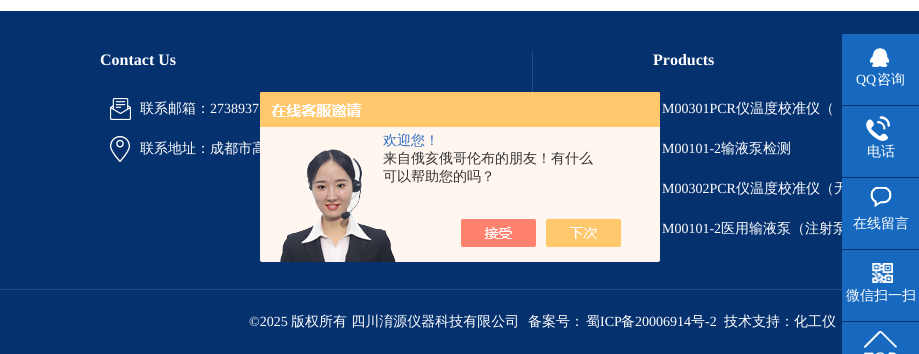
#include <cairo.h>
#include <math.h>
#include <stddef.h>


static void picture(cairo_t *cr, const char *path, double x, double y, double w, double h) {
    cairo_surface_t *image = cairo_image_surface_create_from_png(path);
    cairo_save(cr);
    cairo_set_source_surface(cr, image, x, y);
    cairo_rectangle(cr, x, y, w, h);
    cairo_fill(cr);
    cairo_restore(cr);
    cairo_surface_destroy(image);
}

int main(void) {
    cairo_surface_t *surface = cairo_image_surface_create(CAIRO_FORMAT_RGB24, 919, 354);
    cairo_t *cr = cairo_create(surface);
    cairo_font_options_t *options = cairo_font_options_create();
    cairo_font_options_set_hint_metrics(options, CAIRO_HINT_METRICS_OFF);
    cairo_font_options_set_hint_style(options, CAIRO_HINT_STYLE_NONE);
    cairo_set_font_options(cr, options);
    cairo_set_miter_limit(cr, 4);
    cairo_set_source_rgb(cr, 1, 1, 1);
    cairo_paint(cr);
    cairo_set_source_rgb(cr, 0.027, 0.192, 0.435);
    cairo_rectangle(cr, 0, 11, 919, 343);
    cairo_fill(cr);
    cairo_set_source_rgb(cr, 0.153, 0.286, 0.482);
    cairo_rectangle(cr, 532, 51, 1, 41);
    cairo_fill(cr);
    cairo_select_font_face(cr, "Liberation Serif", CAIRO_FONT_SLANT_NORMAL, CAIRO_FONT_WEIGHT_BOLD);
    cairo_set_font_size(cr, 16);
    cairo_set_source_rgb(cr, 1, 1, 1);
    cairo_move_to(cr, 100, 65);
    cairo_show_text(cr, "Contact Us");
    picture(cr, "img1.png", 110, 98, 21, 22);
    cairo_select_font_face(cr, "WenQuanYi Zen Hei Medium", CAIRO_FONT_SLANT_NORMAL, CAIRO_FONT_WEIGHT_NORMAL);
    cairo_set_font_size(cr, 14);
    cairo_move_to(cr, 140, 113);
    cairo_show_text(cr, "联系邮箱：");
    cairo_select_font_face(cr, "Liberation Serif", CAIRO_FONT_SLANT_NORMAL, CAIRO_FONT_WEIGHT_NORMAL);
    cairo_move_to(cr, 210, 113);
    cairo_show_text(cr, "2738937");
    picture(cr, "img2.png", 110, 136, 20, 26);
    cairo_select_font_face(cr, "WenQuanYi Zen Hei Medium", CAIRO_FONT_SLANT_NORMAL, CAIRO_FONT_WEIGHT_NORMAL);
    cairo_move_to(cr, 140, 153);
    cairo_show_text(cr, "联系地址：成都市高");
    cairo_select_font_face(cr, "Liberation Serif", CAIRO_FONT_SLANT_NORMAL, CAIRO_FONT_WEIGHT_BOLD);
    cairo_set_font_size(cr, 16);
    cairo_move_to(cr, 653, 65);
    cairo_show_text(cr, "Products");
    cairo_select_font_face(cr, "Liberation Serif", CAIRO_FONT_SLANT_NORMAL, CAIRO_FONT_WEIGHT_NORMAL);
    cairo_set_font_size(cr, 14);
    cairo_move_to(cr, 662, 113);
    cairo_show_text(cr, "M00301PCR");
    cairo_select_font_face(cr, "WenQuanYi Zen Hei Medium", CAIRO_FONT_SLANT_NORMAL, CAIRO_FONT_WEIGHT_NORMAL);
    cairo_move_to(cr, 736, 113);
    cairo_show_text(cr, "仪温度校准仪（");
    cairo_select_font_face(cr, "Liberation Serif", CAIRO_FONT_SLANT_NORMAL, CAIRO_FONT_WEIGHT_NORMAL);
    cairo_move_to(cr, 662, 153);
    cairo_show_text(cr, "M00101-2");
    cairo_select_font_face(cr, "WenQuanYi Zen Hei Medium", CAIRO_FONT_SLANT_NORMAL, CAIRO_FONT_WEIGHT_NORMAL);
    cairo_move_to(cr, 721, 153);
    cairo_show_text(cr, "输液泵检测");
    cairo_select_font_face(cr, "Liberation Serif", CAIRO_FONT_SLANT_NORMAL, CAIRO_FONT_WEIGHT_NORMAL);
    cairo_move_to(cr, 662, 193);
    cairo_show_text(cr, "M00302PCR");
    cairo_select_font_face(cr, "WenQuanYi Zen Hei Medium", CAIRO_FONT_SLANT_NORMAL, CAIRO_FONT_WEIGHT_NORMAL);
    cairo_move_to(cr, 736, 193);
    cairo_show_text(cr, "仪温度校准仪（无");
    cairo_select_font_face(cr, "Liberation Serif", CAIRO_FONT_SLANT_NORMAL, CAIRO_FONT_WEIGHT_NORMAL);
    cairo_move_to(cr, 662, 233);
    cairo_show_text(cr, "M00101-2");
    cairo_select_font_face(cr, "WenQuanYi Zen Hei Medium", CAIRO_FONT_SLANT_NORMAL, CAIRO_FONT_WEIGHT_NORMAL);
    cairo_move_to(cr, 721, 233);
    cairo_show_text(cr, "医用输液泵（注射泵");
    cairo_set_source_rgb(cr, 0.153, 0.286, 0.482);
    cairo_rectangle(cr, 0, 289, 842, 1);
    cairo_fill(cr);
    cairo_select_font_face(cr, "Liberation Serif", CAIRO_FONT_SLANT_NORMAL, CAIRO_FONT_WEIGHT_NORMAL);
    cairo_set_source_rgb(cr, 1, 1, 1);
    cairo_move_to(cr, 249, 326);
    cairo_show_text(cr, "©2025");
    cairo_select_font_face(cr, "WenQuanYi Zen Hei Medium", CAIRO_FONT_SLANT_NORMAL, CAIRO_FONT_WEIGHT_NORMAL);
    cairo_move_to(cr, 291, 326);
    cairo_show_text(cr, "版权所有 四川淯源仪器科技有限公司");
    cairo_move_to(cr, 528, 326);
    cairo_show_text(cr, "备案号：");
    cairo_move_to(cr, 586, 326);
    cairo_show_text(cr, "蜀");
    cairo_select_font_face(cr, "Liberation Serif", CAIRO_FONT_SLANT_NORMAL, CAIRO_FONT_WEIGHT_NORMAL);
    cairo_move_to(cr, 600, 326);
    cairo_show_text(cr, "ICP");
    cairo_select_font_face(cr, "WenQuanYi Zen Hei Medium", CAIRO_FONT_SLANT_NORMAL, CAIRO_FONT_WEIGHT_NORMAL);
    cairo_move_to(cr, 621, 326);
    cairo_show_text(cr, "备");
    cairo_select_font_face(cr, "Liberation Serif", CAIRO_FONT_SLANT_NORMAL, CAIRO_FONT_WEIGHT_NORMAL);
    cairo_move_to(cr, 635, 326);
    cairo_show_text(cr, "20006914");
    cairo_select_font_face(cr, "WenQuanYi Zen Hei Medium", CAIRO_FONT_SLANT_NORMAL, CAIRO_FONT_WEIGHT_NORMAL);
    cairo_move_to(cr, 691, 326);
    cairo_show_text(cr, "号");
    cairo_select_font_face(cr, "Liberation Serif", CAIRO_FONT_SLANT_NORMAL, CAIRO_FONT_WEIGHT_NORMAL);
    cairo_move_to(cr, 705, 326);
    cairo_show_text(cr, "-2");
    cairo_select_font_face(cr, "WenQuanYi Zen Hei Medium", CAIRO_FONT_SLANT_NORMAL, CAIRO_FONT_WEIGHT_NORMAL);
    cairo_move_to(cr, 724, 326);
    cairo_show_text(cr, "技术支持：化工仪");
    cairo_set_source_rgb(cr, 0.09, 0.412, 0.753);
    cairo_rectangle(cr, 842, 34, 77, 71);
    cairo_fill(cr);
    picture(cr, "img3.png", 870, 48, 19, 19);
    cairo_select_font_face(cr, "Liberation Serif", CAIRO_FONT_SLANT_NORMAL, CAIRO_FONT_WEIGHT_NORMAL);
    cairo_set_source_rgb(cr, 1, 1, 1);
    cairo_move_to(cr, 856, 84);
    cairo_show_text(cr, "QQ");
    cairo_select_font_face(cr, "WenQuanYi Zen Hei Medium", CAIRO_FONT_SLANT_NORMAL, CAIRO_FONT_WEIGHT_NORMAL);
    cairo_move_to(cr, 877, 84);
    cairo_show_text(cr, "咨询");
    cairo_set_source_rgb(cr, 0.09, 0.412, 0.753);
    cairo_rectangle(cr, 842, 106, 77, 71);
    cairo_fill(cr);
    picture(cr, "img4.png", 866, 116, 24, 25);
    cairo_set_source_rgb(cr, 1, 1, 1);
    cairo_move_to(cr, 867, 156);
    cairo_show_text(cr, "电话");
    cairo_set_source_rgb(cr, 0.09, 0.412, 0.753);
    cairo_rectangle(cr, 842, 178, 77, 71);
    cairo_fill(cr);
    picture(cr, "img5.png", 870, 187, 22, 21);
    cairo_set_source_rgb(cr, 1, 1, 1);
    cairo_move_to(cr, 853, 228);
    cairo_show_text(cr, "在线留言");
    cairo_set_source_rgb(cr, 0.09, 0.412, 0.753);
    cairo_rectangle(cr, 842, 250, 77, 71);
    cairo_fill(cr);
    picture(cr, "img6.png", 872, 263, 21, 20);
    cairo_set_source_rgb(cr, 1, 1, 1);
    cairo_move_to(cr, 846, 300);
    cairo_show_text(cr, "微信扫一扫");
    cairo_set_source_rgb(cr, 0.09, 0.412, 0.753);
    cairo_rectangle(cr, 842, 322, 77, 32);
    cairo_fill(cr);
    picture(cr, "img7.png", 864, 331, 33, 23);
    picture(cr, "img8.png", 260, 92, 400, 170);
    cairo_set_source_rgb(cr, 0.18, 0.431, 0.776);
    cairo_move_to(cr, 383, 145);
    cairo_show_text(cr, "欢迎您！");
    cairo_set_source_rgb(cr, 0.2, 0.2, 0.2);
    cairo_move_to(cr, 383, 163);
    cairo_show_text(cr, "来自俄亥俄哥伦布的朋友！有什么");
    cairo_move_to(cr, 383, 181);
    cairo_show_text(cr, "可以帮助您的吗？");
    cairo_surface_write_to_png(surface, "page.png");
    cairo_font_options_destroy(options);
    cairo_destroy(cr);
    cairo_surface_destroy(surface);
    return 0;
}
